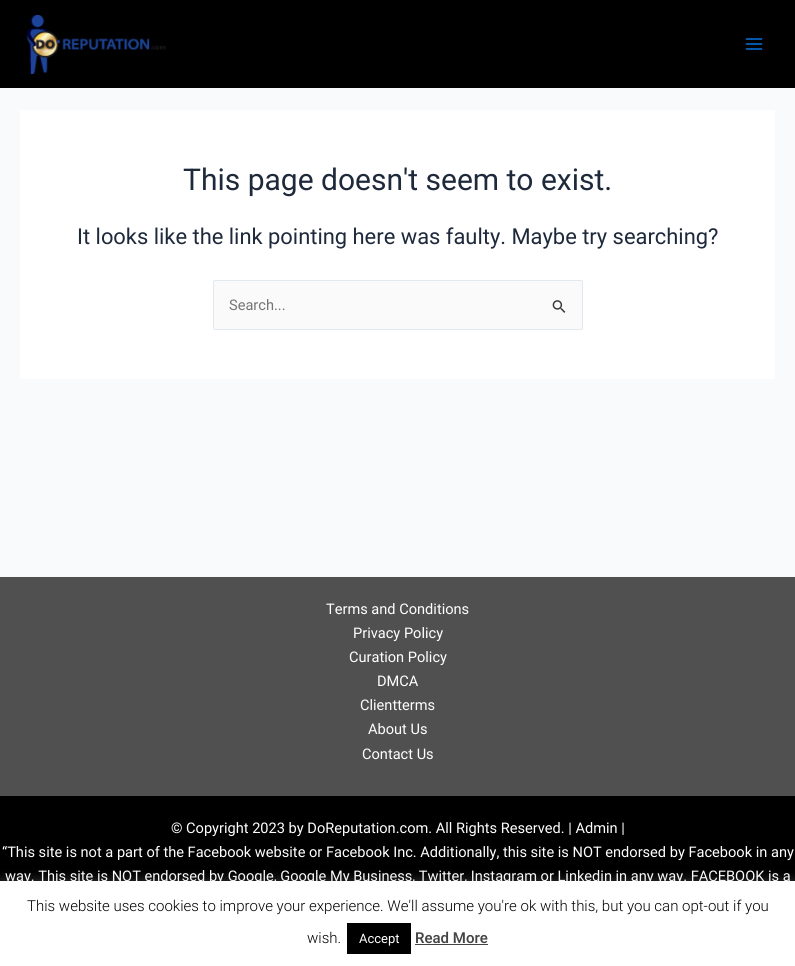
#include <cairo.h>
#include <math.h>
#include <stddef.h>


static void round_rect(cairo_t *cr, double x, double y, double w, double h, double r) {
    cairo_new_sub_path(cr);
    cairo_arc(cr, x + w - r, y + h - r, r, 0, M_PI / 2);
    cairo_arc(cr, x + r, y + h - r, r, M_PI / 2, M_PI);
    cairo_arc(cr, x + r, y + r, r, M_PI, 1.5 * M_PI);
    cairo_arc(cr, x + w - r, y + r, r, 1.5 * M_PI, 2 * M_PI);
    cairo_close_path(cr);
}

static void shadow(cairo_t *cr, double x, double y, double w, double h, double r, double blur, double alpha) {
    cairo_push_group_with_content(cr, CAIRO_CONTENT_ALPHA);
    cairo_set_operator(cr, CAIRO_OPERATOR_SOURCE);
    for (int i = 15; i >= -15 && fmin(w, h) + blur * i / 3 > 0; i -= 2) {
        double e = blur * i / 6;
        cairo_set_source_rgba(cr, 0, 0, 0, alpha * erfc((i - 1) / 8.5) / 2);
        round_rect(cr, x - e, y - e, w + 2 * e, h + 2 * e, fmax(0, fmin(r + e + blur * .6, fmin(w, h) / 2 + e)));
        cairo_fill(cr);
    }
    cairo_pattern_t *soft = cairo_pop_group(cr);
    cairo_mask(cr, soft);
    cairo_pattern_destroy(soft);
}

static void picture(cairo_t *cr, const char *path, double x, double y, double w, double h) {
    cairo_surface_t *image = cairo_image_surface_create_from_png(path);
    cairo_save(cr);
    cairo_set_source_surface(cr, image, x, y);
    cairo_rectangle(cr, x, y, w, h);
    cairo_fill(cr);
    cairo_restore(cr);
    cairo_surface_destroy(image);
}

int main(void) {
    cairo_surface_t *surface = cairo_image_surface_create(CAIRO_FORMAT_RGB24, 795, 966);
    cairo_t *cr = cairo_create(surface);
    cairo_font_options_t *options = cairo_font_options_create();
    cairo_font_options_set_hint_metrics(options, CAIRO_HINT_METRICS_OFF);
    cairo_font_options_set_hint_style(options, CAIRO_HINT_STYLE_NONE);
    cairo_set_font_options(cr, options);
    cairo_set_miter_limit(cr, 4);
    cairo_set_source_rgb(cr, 0.976, 0.98, 0.984);
    cairo_paint(cr);
    cairo_set_source_rgb(cr, 0, 0, 0);
    cairo_rectangle(cr, 0, 0, 795, 88);
    cairo_fill(cr);
    picture(cr, "img1.png", 26, 15, 140, 59);
    picture(cr, "img2.png", 745, 38, 18, 12);
    cairo_set_source_rgb(cr, 1, 1, 1);
    cairo_rectangle(cr, 20, 110, 755, 269);
    cairo_fill(cr);
    cairo_select_font_face(cr, "Roboto", CAIRO_FONT_SLANT_NORMAL, CAIRO_FONT_WEIGHT_NORMAL);
    cairo_set_font_size(cr, 30);
    cairo_set_source_rgb(cr, 0.118, 0.161, 0.231);
    cairo_move_to(cr, 183, 190);
    cairo_show_text(cr, "This page doesn't seem to exist.");
    cairo_set_font_size(cr, 21.9);
    cairo_move_to(cr, 77, 244);
    cairo_show_text(cr, "It looks like the link pointing here was faulty. Maybe try searching?");
    cairo_set_source_rgb(cr, 0.98, 0.98, 0.98);
    round_rect(cr, 213.5, 280.5, 369, 49, 1.5);
    cairo_fill_preserve(cr);
    cairo_set_source_rgb(cr, 0.886, 0.91, 0.941);
    cairo_set_line_width(cr, 1);
    cairo_stroke(cr);
    cairo_set_font_size(cr, 14.6);
    cairo_set_source_rgb(cr, 0.459, 0.459, 0.459);
    cairo_move_to(cr, 229, 310);
    cairo_show_text(cr, "Search...");
    picture(cr, "img3.png", 552, 300, 14, 13);
    cairo_set_source_rgb(cr, 0.314, 0.314, 0.314);
    cairo_rectangle(cr, 0, 577, 795, 219);
    cairo_fill(cr);
    cairo_set_source_rgb(cr, 1, 1, 1);
    cairo_move_to(cr, 326, 614);
    cairo_show_text(cr, "Terms and Conditions");
    cairo_move_to(cr, 353, 638);
    cairo_show_text(cr, "Privacy Policy");
    cairo_move_to(cr, 349, 662);
    cairo_show_text(cr, "Curation Policy");
    cairo_move_to(cr, 377, 686);
    cairo_show_text(cr, "DMCA");
    cairo_move_to(cr, 360, 710);
    cairo_show_text(cr, "Clientterms");
    cairo_move_to(cr, 368, 734);
    cairo_show_text(cr, "About Us");
    cairo_move_to(cr, 362, 759);
    cairo_show_text(cr, "Contact Us");
    cairo_set_source_rgb(cr, 0, 0, 0);
    cairo_rectangle(cr, 0, 796, 795, 85);
    cairo_fill(cr);
    cairo_set_source_rgb(cr, 1, 1, 1);
    cairo_move_to(cr, 171, 833);
    cairo_show_text(cr, "© Copyright 2023 by DoReputation.com. All Rights Reserved. | Admin |");
    cairo_move_to(cr, 2, 857);
    cairo_show_text(cr, "“This site is not a part of the Facebook website or Facebook Inc. Additionally, this site is NOT endorsed by Facebook in any");
    cairo_move_to(cr, 5, 881);
    cairo_show_text(cr, "way. This site is NOT endorsed by Google, Google My Business, Twitter, Instagram or Linkedin in any way. FACEBOOK is a");
    cairo_set_source_rgb(cr, 0.675, 0.671, 0.671);
    shadow(cr, 0, 880, 795, 85, 0, 5, 0.3);
    cairo_set_source_rgb(cr, 1, 1, 1);
    cairo_rectangle(cr, 0, 881, 795, 85);
    cairo_fill(cr);
    cairo_select_font_face(cr, "Roboto Light", CAIRO_FONT_SLANT_NORMAL, CAIRO_FONT_WEIGHT_NORMAL);
    cairo_set_font_size(cr, 15);
    cairo_set_source_rgb(cr, 0, 0, 0);
    cairo_move_to(cr, 27, 911);
    cairo_show_text(cr, "This website uses cookies to improve your experience. We'll assume you're ok with this, but you can opt-out if you");
    cairo_move_to(cr, 307, 943);
    cairo_show_text(cr, "wish.");
    cairo_rectangle(cr, 347, 923, 64, 31);
    cairo_fill(cr);
    cairo_select_font_face(cr, "Roboto", CAIRO_FONT_SLANT_NORMAL, CAIRO_FONT_WEIGHT_NORMAL);
    cairo_set_font_size(cr, 13);
    cairo_set_source_rgb(cr, 1, 1, 1);
    cairo_move_to(cr, 359, 943);
    cairo_show_text(cr, "Accept");
    cairo_select_font_face(cr, "Roboto Medium", CAIRO_FONT_SLANT_NORMAL, CAIRO_FONT_WEIGHT_NORMAL);
    cairo_set_font_size(cr, 15);
    cairo_set_source_rgb(cr, 0.267, 0.267, 0.267);
    cairo_move_to(cr, 415, 943);
    cairo_show_text(cr, "Read More");
    cairo_rectangle(cr, 415, 944, 73, 1);
    cairo_fill(cr);
    cairo_surface_write_to_png(surface, "page.png");
    cairo_font_options_destroy(options);
    cairo_destroy(cr);
    cairo_surface_destroy(surface);
    return 0;
}
